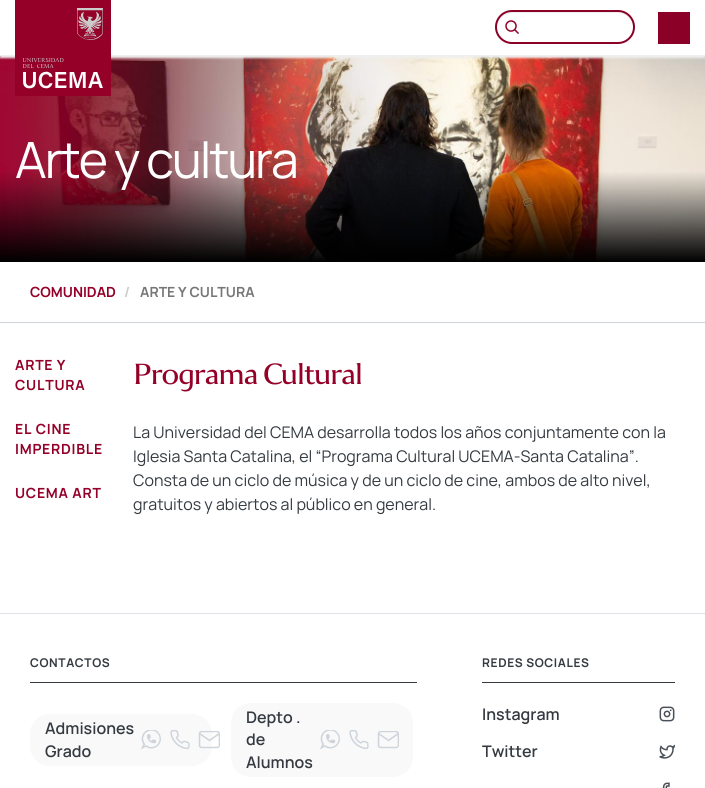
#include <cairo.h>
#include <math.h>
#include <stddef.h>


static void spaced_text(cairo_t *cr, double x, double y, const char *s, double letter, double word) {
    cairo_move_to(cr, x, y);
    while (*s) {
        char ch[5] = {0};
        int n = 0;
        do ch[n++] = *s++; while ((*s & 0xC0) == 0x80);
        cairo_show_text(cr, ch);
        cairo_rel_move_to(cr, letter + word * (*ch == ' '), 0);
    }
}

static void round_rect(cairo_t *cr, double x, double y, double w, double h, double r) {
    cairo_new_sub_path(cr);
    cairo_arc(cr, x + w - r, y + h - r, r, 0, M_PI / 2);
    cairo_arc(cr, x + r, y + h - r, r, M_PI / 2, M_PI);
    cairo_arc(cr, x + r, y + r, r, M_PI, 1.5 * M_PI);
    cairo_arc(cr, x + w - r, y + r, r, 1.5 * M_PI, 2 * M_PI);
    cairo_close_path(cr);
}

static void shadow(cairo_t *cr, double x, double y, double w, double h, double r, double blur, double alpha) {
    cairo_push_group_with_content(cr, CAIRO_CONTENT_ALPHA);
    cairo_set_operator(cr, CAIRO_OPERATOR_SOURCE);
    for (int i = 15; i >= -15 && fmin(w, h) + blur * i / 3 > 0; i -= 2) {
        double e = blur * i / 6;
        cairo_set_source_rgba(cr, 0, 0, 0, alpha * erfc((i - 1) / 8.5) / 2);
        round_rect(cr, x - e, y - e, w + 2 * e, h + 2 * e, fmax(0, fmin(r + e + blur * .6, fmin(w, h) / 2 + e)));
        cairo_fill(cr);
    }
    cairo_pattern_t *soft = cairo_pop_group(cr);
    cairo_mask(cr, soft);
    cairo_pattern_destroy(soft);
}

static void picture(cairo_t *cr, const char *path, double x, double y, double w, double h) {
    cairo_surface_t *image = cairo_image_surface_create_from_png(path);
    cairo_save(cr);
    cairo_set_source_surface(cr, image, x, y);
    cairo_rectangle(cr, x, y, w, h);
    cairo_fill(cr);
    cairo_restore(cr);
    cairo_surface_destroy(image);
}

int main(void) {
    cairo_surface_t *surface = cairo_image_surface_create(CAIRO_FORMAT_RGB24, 705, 788);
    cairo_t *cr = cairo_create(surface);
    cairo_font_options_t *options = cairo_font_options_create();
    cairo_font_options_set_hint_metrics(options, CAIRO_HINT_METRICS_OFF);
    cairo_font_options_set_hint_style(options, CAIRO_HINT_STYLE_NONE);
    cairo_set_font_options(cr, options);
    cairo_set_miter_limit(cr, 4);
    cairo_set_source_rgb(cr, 1, 1, 1);
    cairo_paint(cr);
    picture(cr, "img3.png", 0, 56, 705, 206);
    cairo_save(cr);
    cairo_rectangle(cr, 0, 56, 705, 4);
    cairo_clip(cr);
    cairo_set_source_rgb(cr, 0.937, 0.937, 0.937);
    shadow(cr, 0, 2, 705, 56, 0, 1, 1);
    cairo_restore(cr);
    cairo_set_source_rgb(cr, 0.937, 0.937, 0.937);
    cairo_rectangle(cr, 0, 55, 705, 1);
    cairo_fill(cr);
    picture(cr, "img1.png", 15, 0, 96, 96);
    cairo_set_source_rgb(cr, 0.925, 0.925, 0.925);
    cairo_new_path(cr);
    cairo_move_to(cr, 512, 13);
    cairo_line_to(cr, 618, 13);
    cairo_curve_to(cr, 626, 13, 633, 20, 633, 28);
    cairo_line_to(cr, 633, 27);
    cairo_curve_to(cr, 633, 19, 626, 12, 618, 12);
    cairo_line_to(cr, 512, 12);
    cairo_curve_to(cr, 504, 12, 497, 19, 497, 27);
    cairo_line_to(cr, 497, 28);
    cairo_curve_to(cr, 497, 20, 504, 13, 512, 13);
    cairo_close_path(cr);
    cairo_fill(cr);
    round_rect(cr, 496, 11, 138, 32, 16);
    cairo_set_source_rgb(cr, 0.541, 0, 0.153);
    cairo_stroke(cr);
    picture(cr, "img2.png", 505, 20, 14, 14);
    cairo_rectangle(cr, 658, 12, 32, 32);
    cairo_fill(cr);
    cairo_select_font_face(cr, "Manrope", CAIRO_FONT_SLANT_NORMAL, CAIRO_FONT_WEIGHT_NORMAL);
    cairo_set_font_size(cr, 50);
    cairo_set_source_rgb(cr, 1, 1, 1);
    spaced_text(cr, 15, 178, "Arte y cultura", -2, 0);
    cairo_set_source_rgb(cr, 0.808, 0.831, 0.855);
    cairo_rectangle(cr, 0, 322, 705, 1);
    cairo_fill(cr);
    cairo_select_font_face(cr, "Manrope", CAIRO_FONT_SLANT_NORMAL, CAIRO_FONT_WEIGHT_BOLD);
    cairo_set_font_size(cr, 14);
    cairo_set_source_rgb(cr, 0.58, 0, 0.157);
    cairo_move_to(cr, 30, 297);
    cairo_show_text(cr, "COMUNIDAD");
    cairo_set_source_rgb(cr, 0.8, 0.8, 0.8);
    cairo_move_to(cr, 124, 297);
    cairo_show_text(cr, "/");
    cairo_set_source_rgb(cr, 0.467, 0.467, 0.467);
    cairo_move_to(cr, 140, 297);
    cairo_show_text(cr, "ARTE Y CULTURA");
    cairo_set_source_rgb(cr, 0.58, 0, 0.157);
    spaced_text(cr, 15, 370, "ARTE Y", 0.75, 0);
    spaced_text(cr, 15, 390, "CULTURA", 0.75, 0);
    spaced_text(cr, 15, 434, "EL CINE", 0.75, 0);
    spaced_text(cr, 15, 454, "IMPERDIBLE", 0.75, 0);
    spaced_text(cr, 15, 498, "UCEMA ART", 0.75, 0);
    cairo_select_font_face(cr, "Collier", CAIRO_FONT_SLANT_NORMAL, CAIRO_FONT_WEIGHT_NORMAL);
    cairo_set_font_size(cr, 32);
    spaced_text(cr, 133, 384, "Programa Cultural", -1, 0);
    cairo_select_font_face(cr, "Manrope", CAIRO_FONT_SLANT_NORMAL, CAIRO_FONT_WEIGHT_NORMAL);
    cairo_set_font_size(cr, 16);
    cairo_set_source_rgb(cr, 0.204, 0.227, 0.251);
    cairo_move_to(cr, 133, 438);
    cairo_show_text(cr, "La Universidad del CEMA desarrolla todos los años conjuntamente con la");
    cairo_move_to(cr, 133, 462);
    cairo_show_text(cr, "Iglesia Santa Catalina, el “Programa Cultural UCEMA-Santa Catalina”.");
    cairo_move_to(cr, 133, 486);
    cairo_show_text(cr, "Consta de un ciclo de música y de un ciclo de cine, ambos de alto nivel,");
    cairo_move_to(cr, 133, 510);
    cairo_show_text(cr, "gratuitos y abiertos al público en general.");
    cairo_set_source_rgb(cr, 0.871, 0.886, 0.902);
    cairo_rectangle(cr, 0, 613, 705, 1);
    cairo_fill(cr);
    cairo_set_source_rgb(cr, 0.204, 0.227, 0.251);
    cairo_rectangle(cr, 30, 682, 387, 1);
    cairo_fill(cr);
    cairo_select_font_face(cr, "Manrope", CAIRO_FONT_SLANT_NORMAL, CAIRO_FONT_WEIGHT_BOLD);
    cairo_set_font_size(cr, 12);
    spaced_text(cr, 30, 667, "CONTACTOS", 0.6, 0);
    cairo_set_source_rgb(cr, 0.973, 0.976, 0.98);
    round_rect(cr, 30, 714, 182, 52, 20);
    cairo_fill(cr);
    cairo_select_font_face(cr, "Manrope SemiBold", CAIRO_FONT_SLANT_NORMAL, CAIRO_FONT_WEIGHT_NORMAL);
    cairo_set_font_size(cr, 16);
    cairo_set_source_rgb(cr, 0.204, 0.227, 0.251);
    cairo_move_to(cr, 45, 734);
    cairo_show_text(cr, "Admisiones");
    cairo_move_to(cr, 45, 757);
    cairo_show_text(cr, "Grado");
    picture(cr, "img4.png", 141, 730, 20, 19);
    picture(cr, "img5.png", 170, 730, 20, 20);
    picture(cr, "img6.png", 198, 731, 22, 18);
    cairo_set_source_rgb(cr, 0.973, 0.976, 0.98);
    round_rect(cr, 231, 703, 182, 74, 20);
    cairo_fill(cr);
    cairo_set_source_rgb(cr, 0.204, 0.227, 0.251);
    cairo_move_to(cr, 246, 723);
    cairo_show_text(cr, "Depto .");
    cairo_move_to(cr, 246, 745);
    cairo_show_text(cr, "de");
    cairo_move_to(cr, 246, 768);
    cairo_show_text(cr, "Alumnos");
    picture(cr, "img4.png", 320, 730, 20, 19);
    picture(cr, "img5.png", 349, 730, 20, 20);
    picture(cr, "img7.png", 377, 731, 22, 18);
    cairo_rectangle(cr, 482, 682, 193, 1);
    cairo_fill(cr);
    cairo_select_font_face(cr, "Manrope", CAIRO_FONT_SLANT_NORMAL, CAIRO_FONT_WEIGHT_BOLD);
    cairo_set_font_size(cr, 12);
    spaced_text(cr, 482, 667, "REDES SOCIALES", 0.6, 0);
    picture(cr, "img8.png", 659, 706, 16, 16);
    cairo_select_font_face(cr, "Manrope SemiBold", CAIRO_FONT_SLANT_NORMAL, CAIRO_FONT_WEIGHT_NORMAL);
    cairo_set_font_size(cr, 16);
    cairo_move_to(cr, 482, 720);
    cairo_show_text(cr, "Instagram");
    picture(cr, "img9.png", 659, 744, 16, 15);
    cairo_move_to(cr, 482, 757);
    cairo_show_text(cr, "Twitter");
    picture(cr, "img10.png", 661, 782, 9, 6);
    cairo_surface_write_to_png(surface, "page.png");
    cairo_font_options_destroy(options);
    cairo_destroy(cr);
    cairo_surface_destroy(surface);
    return 0;
}
